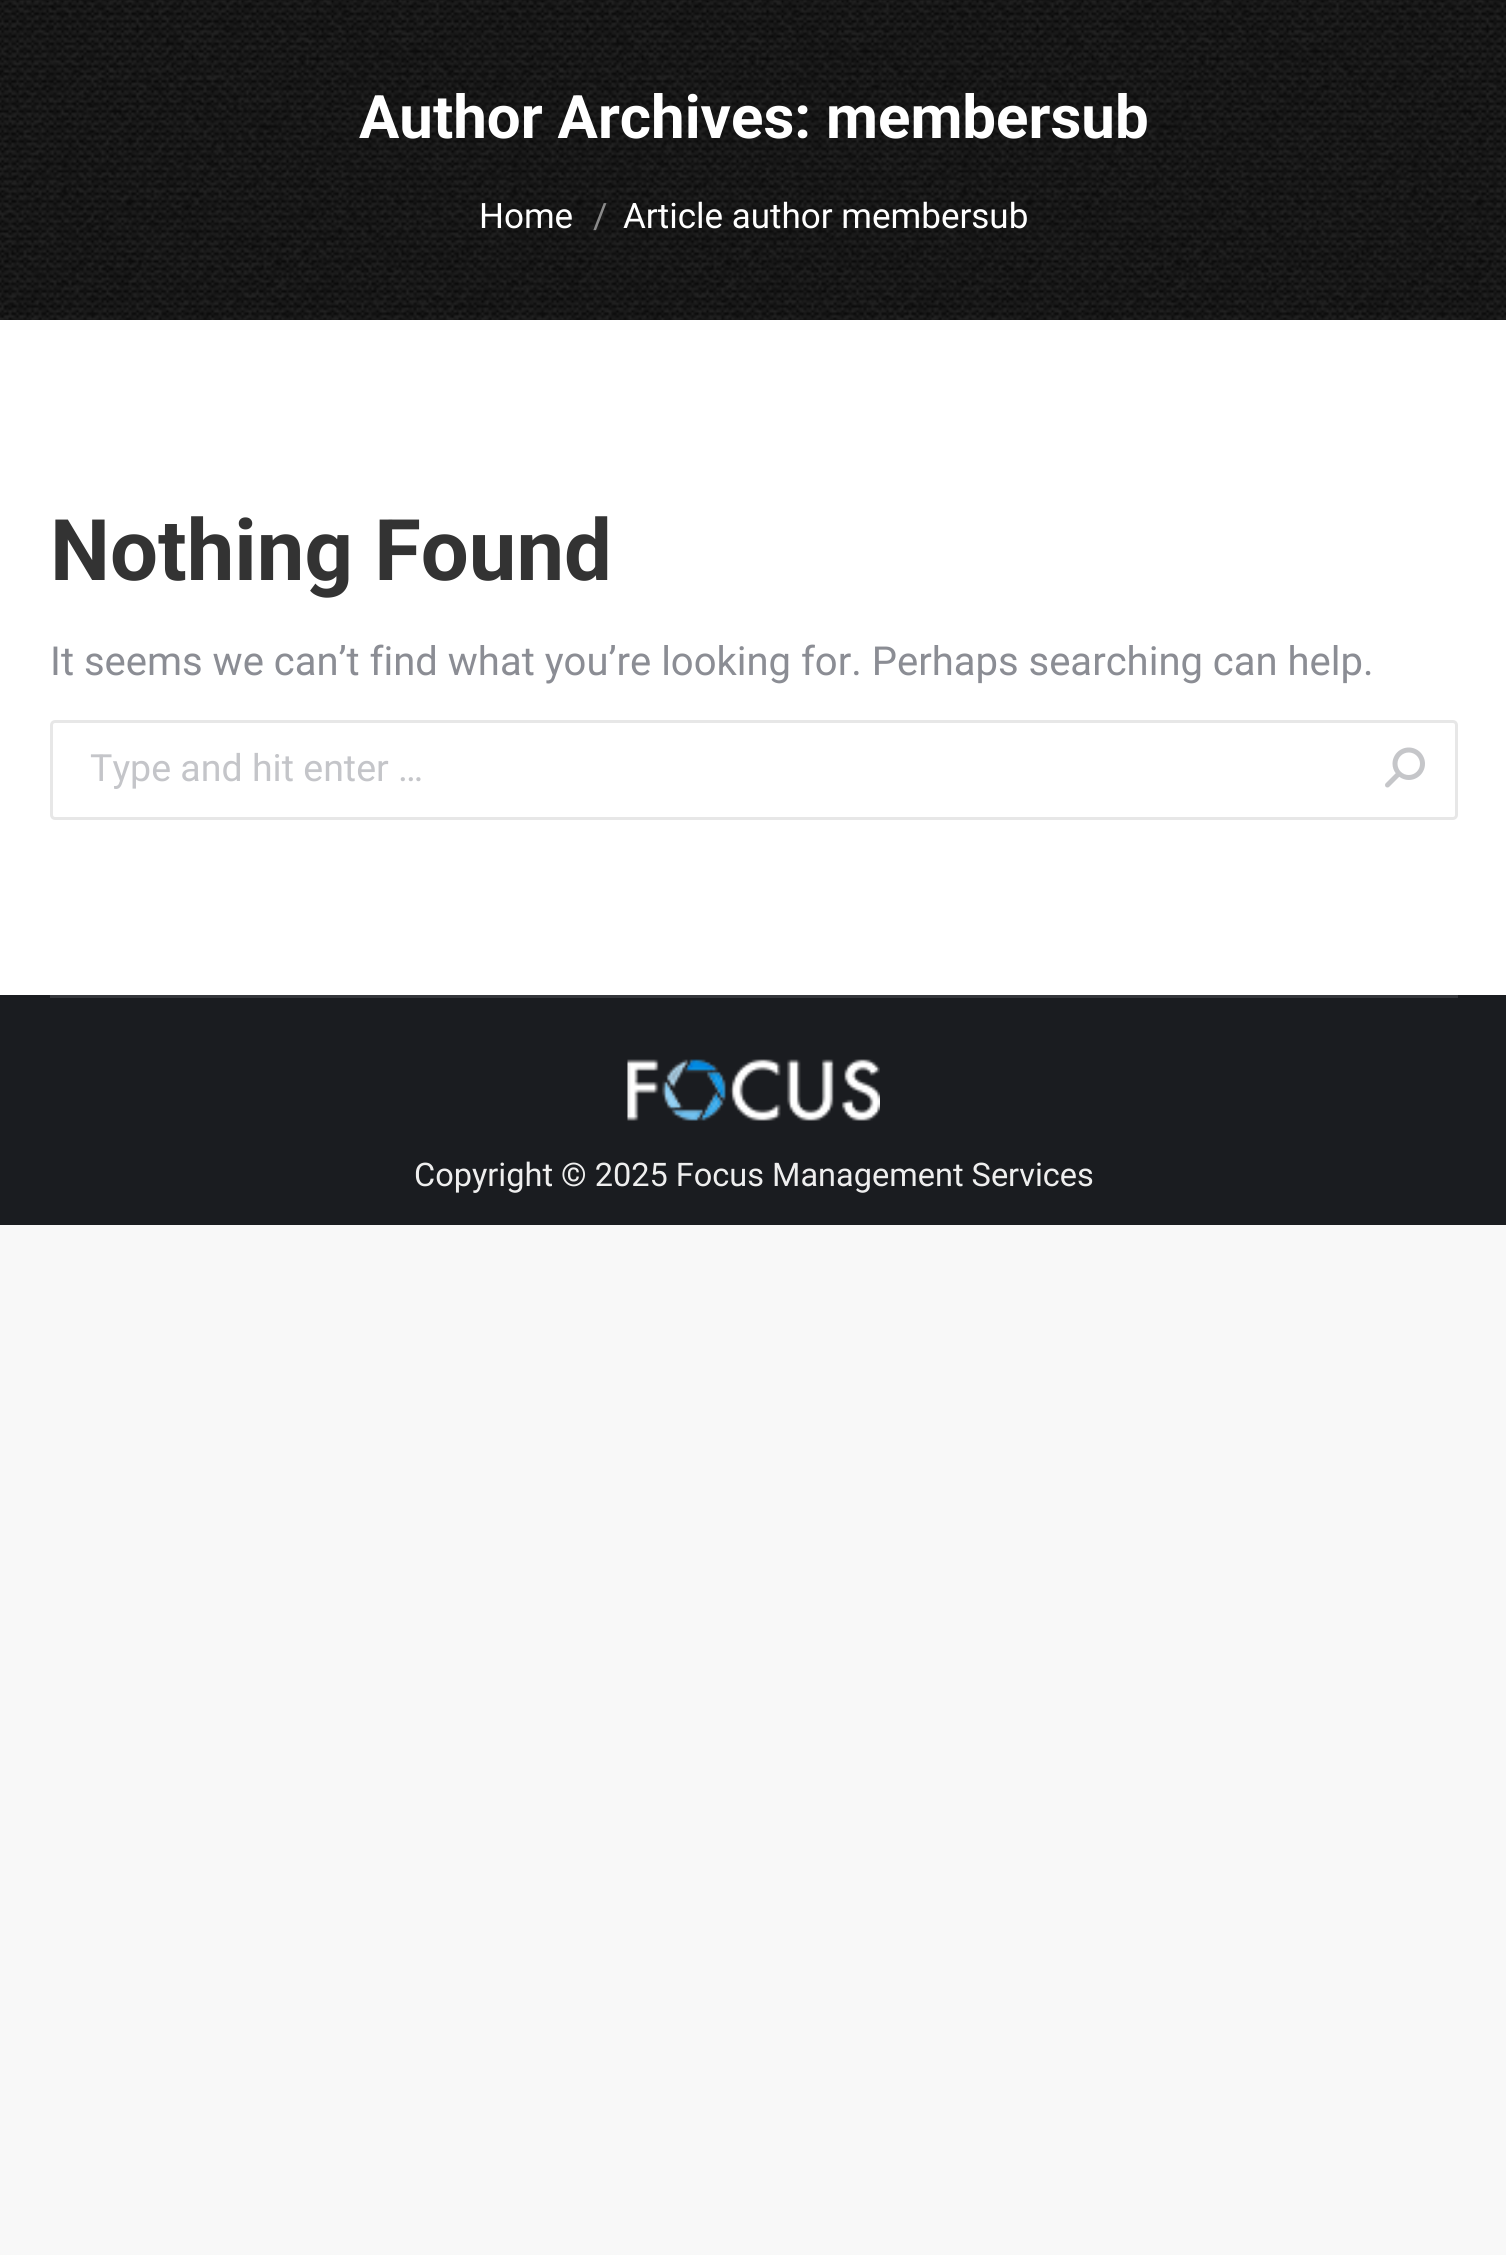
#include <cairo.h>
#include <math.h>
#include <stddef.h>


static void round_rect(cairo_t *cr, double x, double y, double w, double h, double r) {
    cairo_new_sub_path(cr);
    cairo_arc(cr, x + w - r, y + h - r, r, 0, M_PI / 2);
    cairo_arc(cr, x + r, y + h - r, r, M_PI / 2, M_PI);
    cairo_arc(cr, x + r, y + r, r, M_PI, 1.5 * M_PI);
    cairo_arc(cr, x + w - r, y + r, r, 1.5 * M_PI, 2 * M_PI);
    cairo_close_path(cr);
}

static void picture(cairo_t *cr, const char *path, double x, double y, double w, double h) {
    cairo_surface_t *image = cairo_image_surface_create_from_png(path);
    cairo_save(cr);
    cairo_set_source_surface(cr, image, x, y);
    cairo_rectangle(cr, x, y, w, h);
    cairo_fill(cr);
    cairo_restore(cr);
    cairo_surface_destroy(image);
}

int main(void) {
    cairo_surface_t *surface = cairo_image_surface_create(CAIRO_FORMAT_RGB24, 1506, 2255);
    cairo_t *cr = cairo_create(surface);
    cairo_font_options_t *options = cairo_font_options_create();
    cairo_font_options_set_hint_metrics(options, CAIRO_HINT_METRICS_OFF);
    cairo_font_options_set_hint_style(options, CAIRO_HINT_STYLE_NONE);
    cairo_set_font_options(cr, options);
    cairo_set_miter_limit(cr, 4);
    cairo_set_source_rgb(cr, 0.969, 0.969, 0.969);
    cairo_paint(cr);
    cairo_set_source_rgb(cr, 1, 1, 1);
    cairo_rectangle(cr, 0, 320, 1506, 675);
    cairo_fill(cr);
    picture(cr, "img1.png", 0, 0, 1506, 320);
    cairo_select_font_face(cr, "Roboto", CAIRO_FONT_SLANT_NORMAL, CAIRO_FONT_WEIGHT_BOLD);
    cairo_set_font_size(cr, 60);
    cairo_move_to(cr, 359, 138);
    cairo_show_text(cr, "Author Archives: membersub");
    cairo_select_font_face(cr, "Roboto", CAIRO_FONT_SLANT_NORMAL, CAIRO_FONT_WEIGHT_NORMAL);
    cairo_set_font_size(cr, 35);
    cairo_move_to(cr, 479, 228);
    cairo_show_text(cr, "Home");
    cairo_set_source_rgb(cr, 0.545, 0.545, 0.545);
    cairo_move_to(cr, 593, 228);
    cairo_show_text(cr, "/");
    cairo_set_source_rgb(cr, 1, 1, 1);
    cairo_move_to(cr, 623, 228);
    cairo_show_text(cr, "Article author membersub");
    cairo_select_font_face(cr, "Roboto", CAIRO_FONT_SLANT_NORMAL, CAIRO_FONT_WEIGHT_BOLD);
    cairo_set_font_size(cr, 85);
    cairo_set_source_rgb(cr, 0.2, 0.2, 0.2);
    cairo_move_to(cr, 50, 580);
    cairo_show_text(cr, "Nothing Found");
    cairo_select_font_face(cr, "Roboto", CAIRO_FONT_SLANT_NORMAL, CAIRO_FONT_WEIGHT_NORMAL);
    cairo_set_font_size(cr, 40);
    cairo_set_source_rgb(cr, 0.545, 0.553, 0.58);
    cairo_move_to(cr, 50, 675);
    cairo_show_text(cr, "It seems we can’t find what you’re looking for. Perhaps searching can help.");
    round_rect(cr, 51.5, 721.5, 1405, 97, 3.5);
    cairo_set_source_rgb(cr, 0.906, 0.906, 0.906);
    cairo_set_line_width(cr, 3);
    cairo_stroke(cr);
    cairo_set_font_size(cr, 37.5);
    cairo_set_source_rgb(cr, 0.769, 0.773, 0.788);
    cairo_move_to(cr, 90, 781);
    cairo_show_text(cr, "Type and hit enter …");
    picture(cr, "img2.png", 1385, 747, 40, 41);
    cairo_set_source_rgb(cr, 0.102, 0.11, 0.125);
    cairo_rectangle(cr, 0, 995, 1506, 230);
    cairo_fill(cr);
    cairo_set_source_rgb(cr, 0.208, 0.216, 0.231);
    cairo_rectangle(cr, 50, 995, 1408, 3);
    cairo_fill(cr);
    picture(cr, "img3.png", 627, 1059, 253, 62);
    cairo_set_font_size(cr, 32.5);
    cairo_set_source_rgb(cr, 0.933, 0.933, 0.933);
    cairo_move_to(cr, 414, 1186);
    cairo_show_text(cr, "Copyright © 2025 Focus Management Services");
    cairo_surface_write_to_png(surface, "page.png");
    cairo_font_options_destroy(options);
    cairo_destroy(cr);
    cairo_surface_destroy(surface);
    return 0;
}
